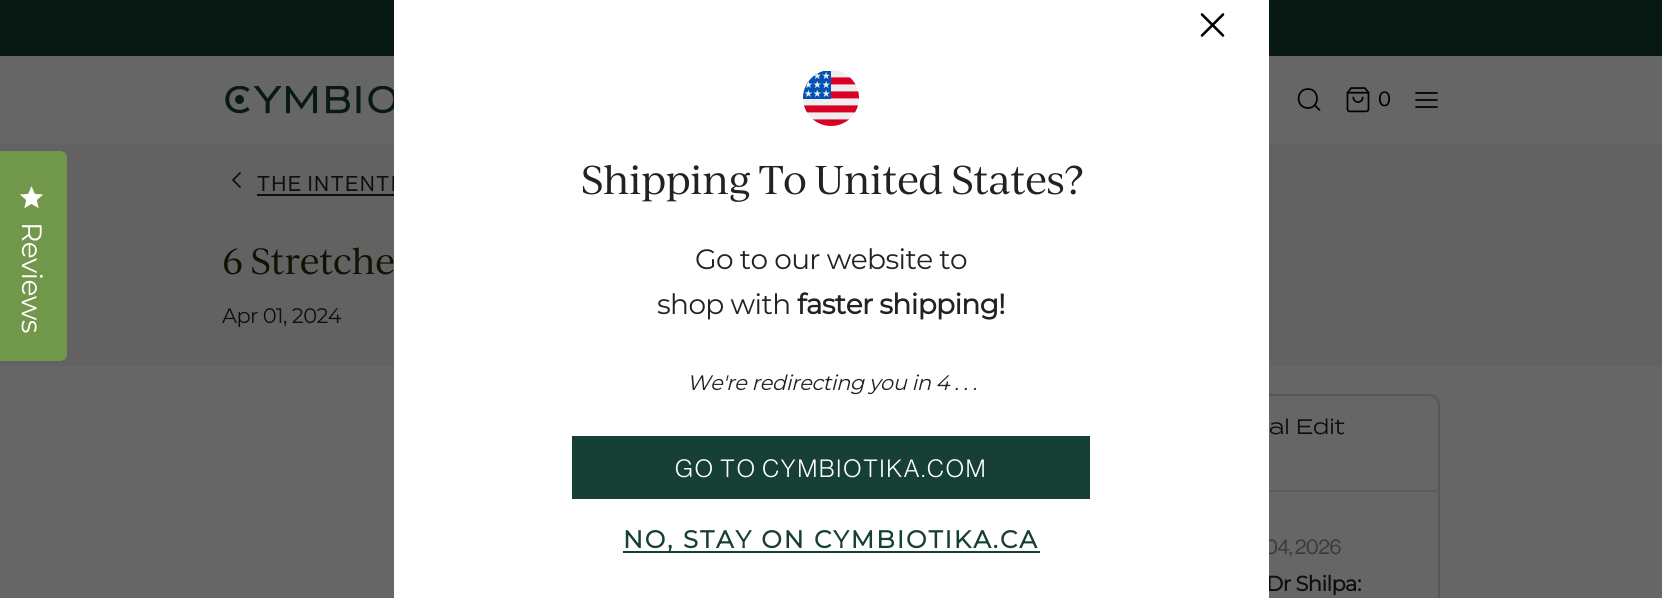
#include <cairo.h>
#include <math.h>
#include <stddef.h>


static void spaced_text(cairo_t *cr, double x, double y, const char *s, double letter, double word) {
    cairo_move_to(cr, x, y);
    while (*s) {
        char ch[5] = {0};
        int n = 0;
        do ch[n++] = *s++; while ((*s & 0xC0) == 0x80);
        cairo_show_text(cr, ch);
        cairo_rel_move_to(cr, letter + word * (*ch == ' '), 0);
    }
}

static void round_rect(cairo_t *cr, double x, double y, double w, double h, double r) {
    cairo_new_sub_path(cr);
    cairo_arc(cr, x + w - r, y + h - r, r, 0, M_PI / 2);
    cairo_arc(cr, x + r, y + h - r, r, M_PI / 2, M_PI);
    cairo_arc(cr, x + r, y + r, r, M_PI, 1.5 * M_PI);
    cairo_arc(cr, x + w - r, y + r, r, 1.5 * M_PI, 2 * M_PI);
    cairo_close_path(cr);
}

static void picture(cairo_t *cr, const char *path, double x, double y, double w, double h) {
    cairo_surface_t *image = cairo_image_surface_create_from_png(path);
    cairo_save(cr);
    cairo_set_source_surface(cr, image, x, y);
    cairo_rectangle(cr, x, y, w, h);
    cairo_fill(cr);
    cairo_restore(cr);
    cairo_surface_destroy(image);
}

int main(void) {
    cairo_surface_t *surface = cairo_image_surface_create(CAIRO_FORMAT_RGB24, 1662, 598);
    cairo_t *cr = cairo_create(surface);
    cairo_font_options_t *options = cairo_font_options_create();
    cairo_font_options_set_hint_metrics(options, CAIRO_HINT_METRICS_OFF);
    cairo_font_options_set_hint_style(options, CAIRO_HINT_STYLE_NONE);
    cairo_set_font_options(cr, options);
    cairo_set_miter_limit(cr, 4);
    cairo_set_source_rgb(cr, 0.4, 0.4, 0.4);
    cairo_paint(cr);
    cairo_set_source_rgb(cr, 0.035, 0.098, 0.082);
    cairo_rectangle(cr, 0, 0, 1662, 56);
    cairo_fill(cr);
    picture(cr, "img1.png", 225, 86, 169, 28);
    cairo_new_path(cr);
    cairo_move_to(cr, 1308, 108);
    cairo_curve_to(cr, 1320, 108, 1320, 89, 1308, 89);
    cairo_curve_to(cr, 1295.5, 89, 1295.5, 108, 1308, 108);
    cairo_close_path(cr);
    cairo_move_to(cr, 1319.5, 110);
    cairo_line_to(cr, 1314.5, 105);
    cairo_set_source_rgb(cr, 0, 0, 0);
    cairo_set_line_width(cr, 1.7);
    cairo_set_line_cap(cr, CAIRO_LINE_CAP_ROUND);
    cairo_set_line_join(cr, CAIRO_LINE_JOIN_ROUND);
    cairo_stroke(cr);
    picture(cr, "img2.png", 1346, 87, 24, 26);
    cairo_select_font_face(cr, "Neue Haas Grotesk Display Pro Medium", CAIRO_FONT_SLANT_NORMAL, CAIRO_FONT_WEIGHT_NORMAL);
    cairo_set_font_size(cr, 21);
    cairo_move_to(cr, 1378, 106);
    cairo_show_text(cr, "0");
    cairo_new_path(cr);
    cairo_move_to(cr, 1416, 107);
    cairo_line_to(cr, 1437, 107);
    cairo_move_to(cr, 1416, 100);
    cairo_line_to(cr, 1437, 100);
    cairo_move_to(cr, 1416, 93);
    cairo_line_to(cr, 1437, 93);
    cairo_stroke(cr);
    cairo_set_source_rgb(cr, 0.384, 0.384, 0.384);
    cairo_rectangle(cr, 0, 144, 1662, 222);
    cairo_fill(cr);
    cairo_new_path(cr);
    cairo_move_to(cr, 240, 187);
    cairo_line_to(cr, 233, 180);
    cairo_line_to(cr, 240, 173);
    cairo_set_source_rgb(cr, 0.055, 0.055, 0.055);
    cairo_stroke(cr);
    spaced_text(cr, 257, 191, "THE INTENTI", 1.75, 0);
    cairo_rectangle(cr, 257, 194, 137, 2);
    cairo_fill(cr);
    cairo_select_font_face(cr, "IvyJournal", CAIRO_FONT_SLANT_NORMAL, CAIRO_FONT_WEIGHT_NORMAL);
    cairo_set_font_size(cr, 35);
    cairo_set_source_rgb(cr, 0.067, 0.071, 0.004);
    spaced_text(cr, 222, 274, "6 Stretche", -0.6, 0);
    cairo_select_font_face(cr, "Montserrat Thin", CAIRO_FONT_SLANT_NORMAL, CAIRO_FONT_WEIGHT_NORMAL);
    cairo_set_font_size(cr, 21);
    cairo_set_source_rgb(cr, 0.055, 0.055, 0.055);
    spaced_text(cr, 222, 323, "Apr 01, 2024", -0.6, 0);
    round_rect(cr, 993, 395, 446, 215, 10);
    cairo_set_source_rgb(cr, 0.341, 0.341, 0.341);
    cairo_set_line_width(cr, 2);
    cairo_set_line_cap(cr, CAIRO_LINE_CAP_BUTT);
    cairo_set_line_join(cr, CAIRO_LINE_JOIN_MITER);
    cairo_stroke(cr);
    cairo_set_source_rgb(cr, 0.361, 0.361, 0.369);
    cairo_rectangle(cr, 1269, 490, 170, 2);
    cairo_fill(cr);
    cairo_select_font_face(cr, "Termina", CAIRO_FONT_SLANT_NORMAL, CAIRO_FONT_WEIGHT_NORMAL);
    cairo_set_source_rgb(cr, 0.055, 0.055, 0.055);
    spaced_text(cr, 1269, 434, "al Edit", -0.6, 0);
    cairo_select_font_face(cr, "Neue Haas Grotesk Display Pro Medium", CAIRO_FONT_SLANT_NORMAL, CAIRO_FONT_WEIGHT_NORMAL);
    cairo_set_source_rgb(cr, 0.227, 0.227, 0.227);
    spaced_text(cr, 1265, 554, "04, 2026", -0.6, 0);
    cairo_select_font_face(cr, "Montserrat", CAIRO_FONT_SLANT_NORMAL, CAIRO_FONT_WEIGHT_BOLD);
    cairo_set_source_rgb(cr, 0.055, 0.055, 0.055);
    spaced_text(cr, 1266, 591, "Dr Shilpa:", -0.6, 0);
    cairo_set_source_rgb(cr, 0.443, 0.596, 0.29);
    cairo_new_path(cr);
    cairo_move_to(cr, -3, 151);
    cairo_line_to(cr, 60, 151);
    cairo_curve_to(cr, 64, 151, 67, 154, 67, 158);
    cairo_line_to(cr, 67, 354);
    cairo_curve_to(cr, 67, 358, 64, 361, 60, 361);
    cairo_line_to(cr, -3, 361);
    cairo_close_path(cr);
    cairo_fill(cr);
    picture(cr, "img3.png", 20, 186, 23, 23);
    cairo_select_font_face(cr, "Montserrat Thin", CAIRO_FONT_SLANT_NORMAL, CAIRO_FONT_WEIGHT_NORMAL);
    cairo_set_font_size(cr, 28);
    cairo_set_source_rgb(cr, 1, 1, 1);
    cairo_save(cr);
    cairo_translate(cr, 22, 222);
    cairo_rotate(cr, 90.1 * M_PI / 180);
    spaced_text(cr, 0, 0, "Reviews", -0.6, 0);
    cairo_restore(cr);
    cairo_rectangle(cr, 394, 0, 875, 598);
    cairo_fill(cr);
    cairo_new_path(cr);
    cairo_move_to(cr, 1223, 14.5);
    cairo_line_to(cr, 1202, 35.5);
    cairo_move_to(cr, 1202, 14.5);
    cairo_line_to(cr, 1223, 35.5);
    cairo_set_source_rgb(cr, 0, 0, 0);
    cairo_set_line_width(cr, 2.6);
    cairo_set_line_cap(cr, CAIRO_LINE_CAP_ROUND);
    cairo_set_line_join(cr, CAIRO_LINE_JOIN_ROUND);
    cairo_stroke(cr);
    picture(cr, "img4.png", 803, 70, 56, 56);
    cairo_select_font_face(cr, "IvyJournal", CAIRO_FONT_SLANT_NORMAL, CAIRO_FONT_WEIGHT_NORMAL);
    cairo_set_font_size(cr, 38.5);
    cairo_set_source_rgb(cr, 0.133, 0.133, 0.133);
    spaced_text(cr, 581, 194, "Shipping To United States?", -0.75, 0);
    cairo_select_font_face(cr, "Montserrat Thin", CAIRO_FONT_SLANT_NORMAL, CAIRO_FONT_WEIGHT_NORMAL);
    cairo_set_font_size(cr, 28);
    spaced_text(cr, 695, 269, "Go to our website to", -0.6, 0);
    spaced_text(cr, 657, 314, "shop with", -0.6, 0);
    cairo_select_font_face(cr, "Montserrat", CAIRO_FONT_SLANT_NORMAL, CAIRO_FONT_WEIGHT_BOLD);
    spaced_text(cr, 797, 314, "faster shipping!", -0.6, 0);
    cairo_select_font_face(cr, "Montserrat Thin", CAIRO_FONT_SLANT_ITALIC, CAIRO_FONT_WEIGHT_NORMAL);
    cairo_set_font_size(cr, 21);
    spaced_text(cr, 687, 390, "We're redirecting you in 4 . . .", -0.4, 0);
    cairo_set_source_rgb(cr, 0.086, 0.247, 0.208);
    cairo_rectangle(cr, 572, 436, 518, 63);
    cairo_fill(cr);
    cairo_select_font_face(cr, "Neue Haas Grotesk Display Pro", CAIRO_FONT_SLANT_NORMAL, CAIRO_FONT_WEIGHT_NORMAL);
    cairo_set_font_size(cr, 24.5);
    cairo_set_source_rgb(cr, 1, 1, 1);
    spaced_text(cr, 675, 477, "GO TO CYMBIOTIKA.COM", 1.95, 0);
    cairo_set_source_rgb(cr, 0.086, 0.247, 0.208);
    cairo_rectangle(cr, 623, 551, 417, 2);
    cairo_fill(cr);
    cairo_select_font_face(cr, "Montserrat", CAIRO_FONT_SLANT_NORMAL, CAIRO_FONT_WEIGHT_BOLD);
    spaced_text(cr, 623, 548, "NO, STAY ON CYMBIOTIKA.CA", 1.95, 0);
    cairo_surface_write_to_png(surface, "page.png");
    cairo_font_options_destroy(options);
    cairo_destroy(cr);
    cairo_surface_destroy(surface);
    return 0;
}
